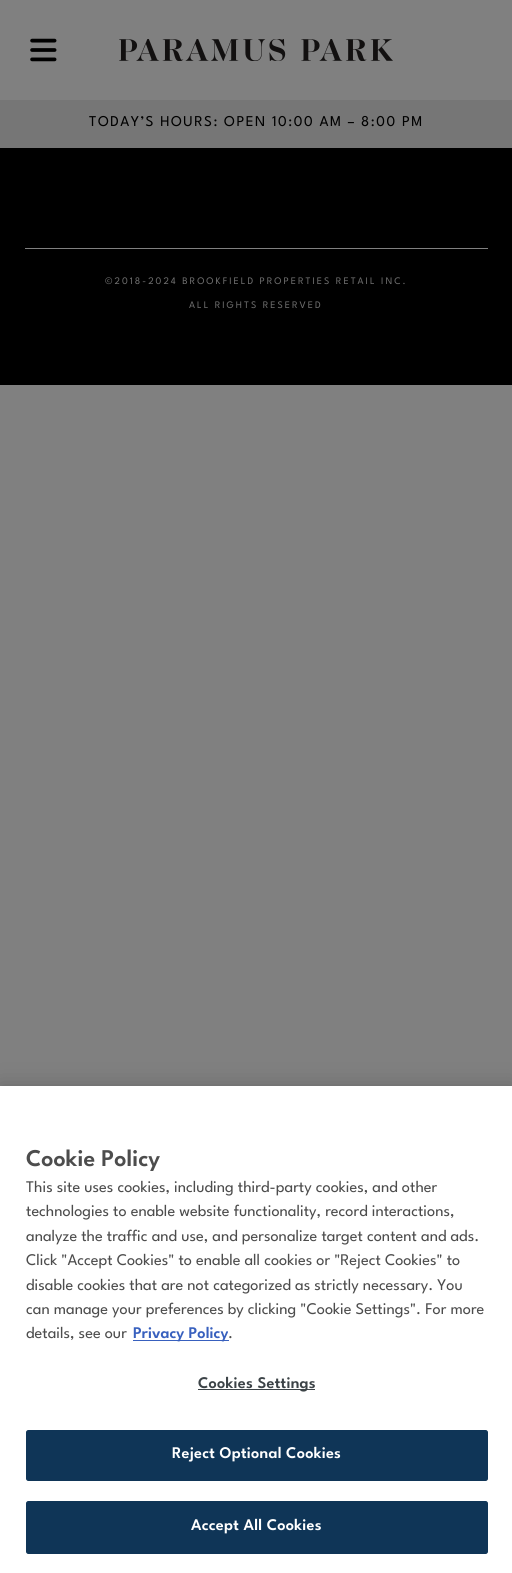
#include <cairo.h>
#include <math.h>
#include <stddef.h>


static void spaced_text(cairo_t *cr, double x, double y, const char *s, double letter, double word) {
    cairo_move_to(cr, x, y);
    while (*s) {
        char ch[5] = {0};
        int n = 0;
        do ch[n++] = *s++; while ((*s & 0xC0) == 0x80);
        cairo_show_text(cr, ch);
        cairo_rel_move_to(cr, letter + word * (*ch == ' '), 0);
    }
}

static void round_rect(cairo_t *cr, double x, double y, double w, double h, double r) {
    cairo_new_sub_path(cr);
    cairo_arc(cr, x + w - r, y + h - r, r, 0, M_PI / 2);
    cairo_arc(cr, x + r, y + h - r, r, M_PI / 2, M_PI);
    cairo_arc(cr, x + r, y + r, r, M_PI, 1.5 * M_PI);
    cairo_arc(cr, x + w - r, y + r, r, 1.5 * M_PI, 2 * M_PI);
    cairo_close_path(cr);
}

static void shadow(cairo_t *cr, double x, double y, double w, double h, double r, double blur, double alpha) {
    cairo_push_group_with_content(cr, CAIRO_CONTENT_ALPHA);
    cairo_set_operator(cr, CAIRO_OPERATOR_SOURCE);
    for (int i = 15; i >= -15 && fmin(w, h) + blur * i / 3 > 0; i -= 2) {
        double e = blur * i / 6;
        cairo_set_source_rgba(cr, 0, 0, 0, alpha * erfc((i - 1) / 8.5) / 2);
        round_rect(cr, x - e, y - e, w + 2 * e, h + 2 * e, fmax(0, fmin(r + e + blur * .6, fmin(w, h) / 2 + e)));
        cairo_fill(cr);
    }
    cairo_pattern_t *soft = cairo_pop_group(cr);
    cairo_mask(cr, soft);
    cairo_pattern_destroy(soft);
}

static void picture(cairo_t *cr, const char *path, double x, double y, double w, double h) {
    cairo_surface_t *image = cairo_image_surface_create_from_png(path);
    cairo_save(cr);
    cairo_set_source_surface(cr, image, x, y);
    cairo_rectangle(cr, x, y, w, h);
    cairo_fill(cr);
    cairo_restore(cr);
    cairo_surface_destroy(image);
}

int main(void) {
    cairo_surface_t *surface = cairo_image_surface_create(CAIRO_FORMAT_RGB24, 512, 1573);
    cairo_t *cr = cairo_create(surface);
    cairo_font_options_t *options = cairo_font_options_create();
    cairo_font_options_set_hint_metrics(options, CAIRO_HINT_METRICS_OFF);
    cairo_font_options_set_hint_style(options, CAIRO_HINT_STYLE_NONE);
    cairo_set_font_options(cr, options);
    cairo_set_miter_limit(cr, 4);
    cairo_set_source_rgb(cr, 0.502, 0.502, 0.502);
    cairo_paint(cr);
    picture(cr, "img1.png", 30, 38, 27, 24);
    picture(cr, "img2.png", 119, 39, 274, 22);
    cairo_set_source_rgb(cr, 0.463, 0.463, 0.463);
    cairo_rectangle(cr, 0, 100, 512, 48);
    cairo_fill(cr);
    cairo_select_font_face(cr, "League Spartan", CAIRO_FONT_SLANT_NORMAL, CAIRO_FONT_WEIGHT_NORMAL);
    cairo_set_font_size(cr, 15);
    cairo_set_source_rgb(cr, 0, 0, 0);
    spaced_text(cr, 89, 126, "TODAY’S HOURS: OPEN 10:00 AM – 8:00 PM", 1.5, 0);
    cairo_rectangle(cr, 0, 148, 512, 237);
    cairo_fill(cr);
    cairo_set_source_rgb(cr, 0.502, 0.502, 0.502);
    cairo_rectangle(cr, 25, 248, 463, 1);
    cairo_fill(cr);
    cairo_set_font_size(cr, 10);
    cairo_set_source_rgb(cr, 0.424, 0.424, 0.424);
    spaced_text(cr, 105, 284, "©2018-2024 BROOKFIELD PROPERTIES RETAIL INC.", 2, 0);
    spaced_text(cr, 189, 308, "ALL RIGHTS RESERVED", 2, 0);
    cairo_set_source_rgb(cr, 0, 0, 0);
    shadow(cr, 0, 1086, 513, 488, 0, 11, 0.2);
    cairo_set_source_rgb(cr, 1, 1, 1);
    cairo_rectangle(cr, 0, 1086, 512, 487);
    cairo_fill(cr);
    cairo_select_font_face(cr, "League Spartan SemiBold", CAIRO_FONT_SLANT_NORMAL, CAIRO_FONT_WEIGHT_NORMAL);
    cairo_set_font_size(cr, 24);
    cairo_set_source_rgb(cr, 0.302, 0.302, 0.302);
    cairo_move_to(cr, 26, 1166);
    cairo_show_text(cr, "Cookie Policy");
    cairo_select_font_face(cr, "League Spartan", CAIRO_FONT_SLANT_NORMAL, CAIRO_FONT_WEIGHT_NORMAL);
    cairo_set_font_size(cr, 16.25);
    cairo_move_to(cr, 26, 1192);
    cairo_show_text(cr, "This site uses cookies, including third-party cookies, and other");
    cairo_move_to(cr, 26, 1216);
    cairo_show_text(cr, "technologies to enable website functionality, record interactions,");
    cairo_move_to(cr, 26, 1241);
    cairo_show_text(cr, "analyze the traffic and use, and personalize target content and ads.");
    cairo_move_to(cr, 26, 1265);
    cairo_show_text(cr, "Click \"Accept Cookies\" to enable all cookies or \"Reject Cookies\" to");
    cairo_move_to(cr, 26, 1290);
    cairo_show_text(cr, "disable cookies that are not categorized as strictly necessary. You");
    cairo_move_to(cr, 26, 1314);
    cairo_show_text(cr, "can manage your preferences by clicking \"Cookie Settings\". For more");
    cairo_move_to(cr, 26, 1338);
    cairo_show_text(cr, "details, see our");
    cairo_set_source_rgb(cr, 0.22, 0.376, 0.745);
    cairo_rectangle(cr, 133, 1340, 96, 1);
    cairo_fill(cr);
    cairo_select_font_face(cr, "League Spartan SemiBold", CAIRO_FONT_SLANT_NORMAL, CAIRO_FONT_WEIGHT_NORMAL);
    cairo_move_to(cr, 133, 1338);
    cairo_show_text(cr, "Privacy Policy");
    cairo_select_font_face(cr, "League Spartan", CAIRO_FONT_SLANT_NORMAL, CAIRO_FONT_WEIGHT_NORMAL);
    cairo_set_source_rgb(cr, 0.302, 0.302, 0.302);
    cairo_move_to(cr, 228, 1338);
    cairo_show_text(cr, ".");
    cairo_set_source_rgb(cr, 0.235, 0.263, 0.278);
    cairo_rectangle(cr, 198, 1389, 117, 1);
    cairo_fill(cr);
    cairo_select_font_face(cr, "League Spartan SemiBold", CAIRO_FONT_SLANT_NORMAL, CAIRO_FONT_WEIGHT_NORMAL);
    spaced_text(cr, 198, 1388, "Cookies Settings", 0.2, 0);
    cairo_set_source_rgb(cr, 0.059, 0.208, 0.341);
    round_rect(cr, 26.5, 1430.5, 461, 50, 2);
    cairo_fill_preserve(cr);
    cairo_set_line_width(cr, 1);
    cairo_stroke(cr);
    cairo_set_source_rgb(cr, 1, 1, 1);
    spaced_text(cr, 172, 1458, "Reject Optional Cookies", 0.2, 0);
    cairo_set_source_rgb(cr, 0.059, 0.208, 0.341);
    round_rect(cr, 26.5, 1501.5, 461, 52, 2);
    cairo_fill_preserve(cr);
    cairo_stroke(cr);
    cairo_set_source_rgb(cr, 1, 1, 1);
    spaced_text(cr, 191, 1530, "Accept All Cookies", 0.2, 0);
    cairo_surface_write_to_png(surface, "page.png");
    cairo_font_options_destroy(options);
    cairo_destroy(cr);
    cairo_surface_destroy(surface);
    return 0;
}
